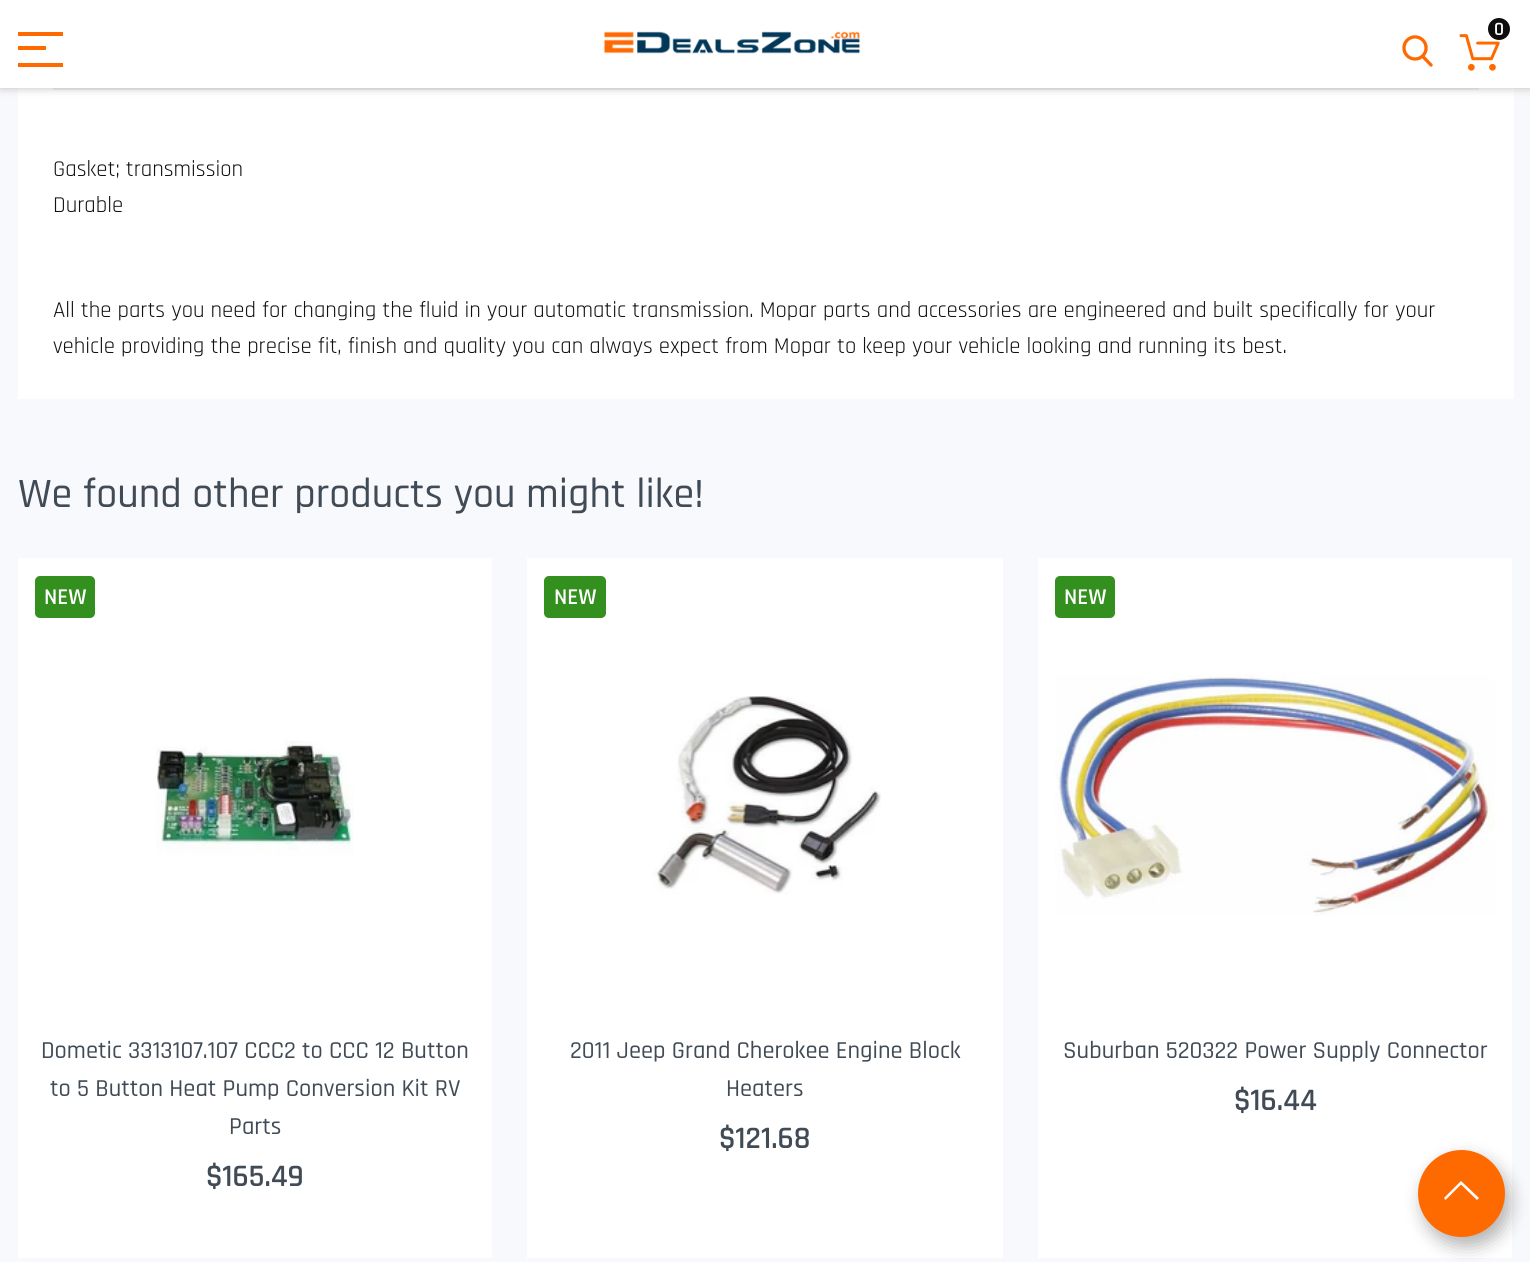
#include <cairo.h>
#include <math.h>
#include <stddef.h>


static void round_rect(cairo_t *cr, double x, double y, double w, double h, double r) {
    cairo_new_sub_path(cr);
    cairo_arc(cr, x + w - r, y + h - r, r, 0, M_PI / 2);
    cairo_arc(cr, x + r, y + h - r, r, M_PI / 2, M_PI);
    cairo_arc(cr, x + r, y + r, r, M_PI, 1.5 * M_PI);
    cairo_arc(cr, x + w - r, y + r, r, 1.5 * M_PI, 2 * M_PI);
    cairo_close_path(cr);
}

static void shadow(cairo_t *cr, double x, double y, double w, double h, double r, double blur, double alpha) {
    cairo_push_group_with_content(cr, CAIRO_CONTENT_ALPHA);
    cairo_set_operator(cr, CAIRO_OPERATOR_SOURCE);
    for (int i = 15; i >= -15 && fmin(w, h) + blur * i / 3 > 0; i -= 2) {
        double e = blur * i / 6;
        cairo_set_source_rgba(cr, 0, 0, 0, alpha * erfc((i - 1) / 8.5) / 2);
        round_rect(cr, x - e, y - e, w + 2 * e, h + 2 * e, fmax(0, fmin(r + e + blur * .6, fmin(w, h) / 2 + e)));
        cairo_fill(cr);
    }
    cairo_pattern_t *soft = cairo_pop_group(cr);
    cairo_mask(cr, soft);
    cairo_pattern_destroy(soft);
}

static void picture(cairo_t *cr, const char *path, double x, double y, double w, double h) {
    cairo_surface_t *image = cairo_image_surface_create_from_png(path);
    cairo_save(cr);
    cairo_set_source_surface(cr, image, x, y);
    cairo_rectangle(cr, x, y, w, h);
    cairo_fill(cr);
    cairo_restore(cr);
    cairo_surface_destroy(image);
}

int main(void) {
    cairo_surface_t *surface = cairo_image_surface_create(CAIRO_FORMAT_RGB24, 1530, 1262);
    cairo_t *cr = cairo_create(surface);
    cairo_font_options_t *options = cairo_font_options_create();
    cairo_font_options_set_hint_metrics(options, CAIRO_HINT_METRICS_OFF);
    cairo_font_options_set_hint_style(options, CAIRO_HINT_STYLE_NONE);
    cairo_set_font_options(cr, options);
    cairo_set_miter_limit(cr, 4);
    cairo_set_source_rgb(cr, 0.969, 0.973, 0.988);
    cairo_paint(cr);
    cairo_set_source_rgb(cr, 1, 1, 1);
    cairo_rectangle(cr, 18, 88, 1496, 311);
    cairo_fill(cr);
    cairo_set_source_rgb(cr, 0.914, 0.918, 0.925);
    cairo_rectangle(cr, 53, 88, 1426, 2);
    cairo_fill(cr);
    cairo_set_source_rgb(cr, 0.741, 0.741, 0.741);
    shadow(cr, 0, 0, 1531, 88, 0, 4.5, 1);
    cairo_set_source_rgb(cr, 1, 1, 1);
    cairo_rectangle(cr, 0, 0, 1530, 88);
    cairo_fill(cr);
    picture(cr, "img1.png", 1459, 34, 41, 37);
    cairo_set_source_rgb(cr, 0.051, 0.051, 0.051);
    cairo_arc(cr, 1499, 29, 11, 0, 2 * M_PI);
    cairo_fill(cr);
    cairo_select_font_face(cr, "Rajdhani SemiBold", CAIRO_FONT_SLANT_NORMAL, CAIRO_FONT_WEIGHT_NORMAL);
    cairo_set_font_size(cr, 19);
    cairo_set_source_rgb(cr, 1, 1, 1);
    cairo_move_to(cr, 1494, 35);
    cairo_show_text(cr, "0");
    cairo_set_source_rgb(cr, 1, 0.416, 0);
    cairo_rectangle(cr, 18, 32, 45, 4);
    cairo_fill(cr);
    cairo_rectangle(cr, 18, 63, 45, 4);
    cairo_fill(cr);
    cairo_rectangle(cr, 18, 46, 28, 4);
    cairo_fill(cr);
    picture(cr, "img2.png", 603, 31, 258, 23);
    picture(cr, "img3.png", 1402, 35, 31, 32);
    cairo_select_font_face(cr, "Rajdhani", CAIRO_FONT_SLANT_NORMAL, CAIRO_FONT_WEIGHT_NORMAL);
    cairo_set_font_size(cr, 22.75);
    cairo_set_source_rgb(cr, 0.071, 0.071, 0.071);
    cairo_move_to(cr, 53, 176);
    cairo_show_text(cr, "Gasket; transmission");
    cairo_move_to(cr, 53, 212);
    cairo_show_text(cr, "Durable");
    cairo_move_to(cr, 53, 317);
    cairo_show_text(cr, "All the parts you need for changing the fluid in your automatic transmission. Mopar parts and accessories are engineered and built specifically for your");
    cairo_move_to(cr, 53, 353);
    cairo_show_text(cr, "vehicle providing the precise fit, finish and quality you can always expect from Mopar to keep your vehicle looking and running its best.");
    cairo_select_font_face(cr, "Rajdhani Medium", CAIRO_FONT_SLANT_NORMAL, CAIRO_FONT_WEIGHT_NORMAL);
    cairo_set_font_size(cr, 42);
    cairo_set_source_rgb(cr, 0.255, 0.294, 0.337);
    cairo_move_to(cr, 18, 507);
    cairo_show_text(cr, "We found other products you might like!");
    cairo_set_source_rgb(cr, 1, 1, 1);
    cairo_rectangle(cr, 18, 558, 474, 700);
    cairo_fill(cr);
    cairo_set_source_rgb(cr, 0.2, 0.561, 0.118);
    round_rect(cr, 35, 576, 60, 42, 5);
    cairo_fill(cr);
    cairo_select_font_face(cr, "Rajdhani SemiBold", CAIRO_FONT_SLANT_NORMAL, CAIRO_FONT_WEIGHT_NORMAL);
    cairo_set_font_size(cr, 22.75);
    cairo_set_source_rgb(cr, 1, 1, 1);
    cairo_move_to(cr, 44, 604);
    cairo_show_text(cr, "NEW");
    picture(cr, "img4.png", 156, 740, 198, 116);
    cairo_select_font_face(cr, "Rajdhani Medium", CAIRO_FONT_SLANT_NORMAL, CAIRO_FONT_WEIGHT_NORMAL);
    cairo_set_font_size(cr, 24.5);
    cairo_set_source_rgb(cr, 0.255, 0.294, 0.337);
    cairo_move_to(cr, 41, 1058);
    cairo_show_text(cr, "Dometic 3313107.107 CCC2 to CCC 12 Button");
    cairo_move_to(cr, 50, 1096);
    cairo_show_text(cr, "to 5 Button Heat Pump Conversion Kit RV");
    cairo_move_to(cr, 229, 1134);
    cairo_show_text(cr, "Parts");
    cairo_select_font_face(cr, "Rajdhani SemiBold", CAIRO_FONT_SLANT_NORMAL, CAIRO_FONT_WEIGHT_NORMAL);
    cairo_set_font_size(cr, 31.5);
    cairo_move_to(cr, 206, 1186);
    cairo_show_text(cr, "$165.49");
    cairo_set_source_rgb(cr, 1, 1, 1);
    cairo_rectangle(cr, 527, 558, 476, 700);
    cairo_fill(cr);
    cairo_set_source_rgb(cr, 0.2, 0.561, 0.118);
    round_rect(cr, 544, 576, 62, 42, 5);
    cairo_fill(cr);
    cairo_set_font_size(cr, 22.75);
    cairo_set_source_rgb(cr, 1, 1, 1);
    cairo_move_to(cr, 554, 604);
    cairo_show_text(cr, "NEW");
    picture(cr, "img5.png", 652, 696, 229, 199);
    cairo_select_font_face(cr, "Rajdhani Medium", CAIRO_FONT_SLANT_NORMAL, CAIRO_FONT_WEIGHT_NORMAL);
    cairo_set_font_size(cr, 24.5);
    cairo_set_source_rgb(cr, 0.255, 0.294, 0.337);
    cairo_move_to(cr, 570, 1058);
    cairo_show_text(cr, "2011 Jeep Grand Cherokee Engine Block");
    cairo_move_to(cr, 726, 1096);
    cairo_show_text(cr, "Heaters");
    cairo_select_font_face(cr, "Rajdhani SemiBold", CAIRO_FONT_SLANT_NORMAL, CAIRO_FONT_WEIGHT_NORMAL);
    cairo_set_font_size(cr, 31.5);
    cairo_move_to(cr, 719, 1148);
    cairo_show_text(cr, "$121.68");
    cairo_set_source_rgb(cr, 1, 1, 1);
    cairo_rectangle(cr, 1038, 558, 474, 700);
    cairo_fill(cr);
    cairo_set_source_rgb(cr, 0.2, 0.561, 0.118);
    round_rect(cr, 1055, 576, 60, 42, 5);
    cairo_fill(cr);
    cairo_set_font_size(cr, 22.75);
    cairo_set_source_rgb(cr, 1, 1, 1);
    cairo_move_to(cr, 1064, 604);
    cairo_show_text(cr, "NEW");
    picture(cr, "img6.png", 1055, 674, 440, 242);
    cairo_select_font_face(cr, "Rajdhani Medium", CAIRO_FONT_SLANT_NORMAL, CAIRO_FONT_WEIGHT_NORMAL);
    cairo_set_font_size(cr, 24.5);
    cairo_set_source_rgb(cr, 0.255, 0.294, 0.337);
    cairo_move_to(cr, 1063, 1058);
    cairo_show_text(cr, "Suburban 520322 Power Supply Connector");
    cairo_select_font_face(cr, "Rajdhani SemiBold", CAIRO_FONT_SLANT_NORMAL, CAIRO_FONT_WEIGHT_NORMAL);
    cairo_set_font_size(cr, 31.5);
    cairo_move_to(cr, 1234, 1110);
    cairo_show_text(cr, "$16.44");
    cairo_set_source_rgb(cr, 0, 0, 0);
    shadow(cr, 1423, 1159, 87, 87, 43.5, 9, 0.3);
    cairo_set_source_rgb(cr, 1, 0.416, 0);
    cairo_arc(cr, 1461.5, 1193.5, 42.5, 0, 2 * M_PI);
    cairo_fill_preserve(cr);
    cairo_stroke(cr);
    cairo_set_source_rgb(cr, 1, 1, 1);
    cairo_new_path(cr);
    cairo_move_to(cr, 1461, 1181);
    cairo_line_to(cr, 1444, 1198);
    cairo_line_to(cr, 1445.5, 1200);
    cairo_line_to(cr, 1461, 1184.5);
    cairo_line_to(cr, 1477, 1200);
    cairo_line_to(cr, 1479, 1198);
    cairo_close_path(cr);
    cairo_fill(cr);
    cairo_surface_write_to_png(surface, "page.png");
    cairo_font_options_destroy(options);
    cairo_destroy(cr);
    cairo_surface_destroy(surface);
    return 0;
}
